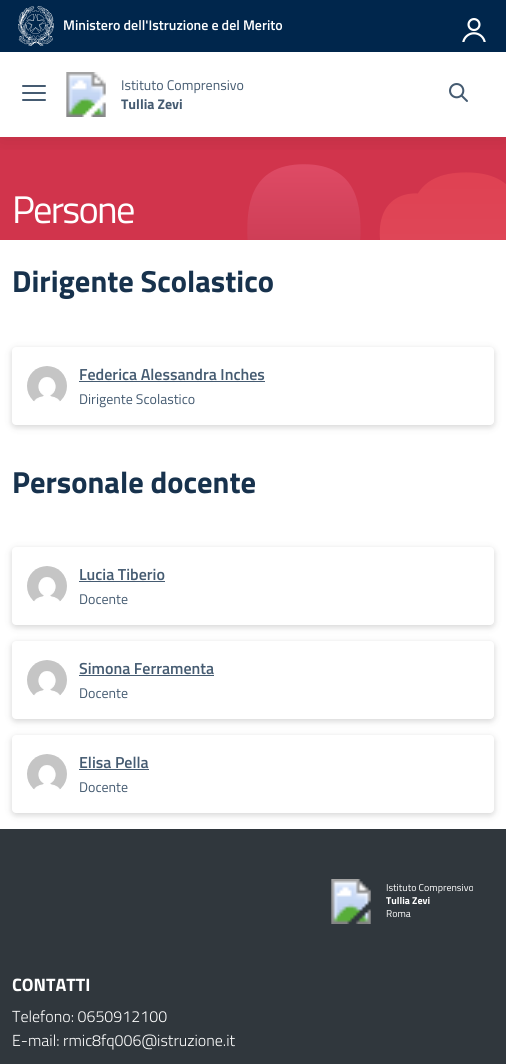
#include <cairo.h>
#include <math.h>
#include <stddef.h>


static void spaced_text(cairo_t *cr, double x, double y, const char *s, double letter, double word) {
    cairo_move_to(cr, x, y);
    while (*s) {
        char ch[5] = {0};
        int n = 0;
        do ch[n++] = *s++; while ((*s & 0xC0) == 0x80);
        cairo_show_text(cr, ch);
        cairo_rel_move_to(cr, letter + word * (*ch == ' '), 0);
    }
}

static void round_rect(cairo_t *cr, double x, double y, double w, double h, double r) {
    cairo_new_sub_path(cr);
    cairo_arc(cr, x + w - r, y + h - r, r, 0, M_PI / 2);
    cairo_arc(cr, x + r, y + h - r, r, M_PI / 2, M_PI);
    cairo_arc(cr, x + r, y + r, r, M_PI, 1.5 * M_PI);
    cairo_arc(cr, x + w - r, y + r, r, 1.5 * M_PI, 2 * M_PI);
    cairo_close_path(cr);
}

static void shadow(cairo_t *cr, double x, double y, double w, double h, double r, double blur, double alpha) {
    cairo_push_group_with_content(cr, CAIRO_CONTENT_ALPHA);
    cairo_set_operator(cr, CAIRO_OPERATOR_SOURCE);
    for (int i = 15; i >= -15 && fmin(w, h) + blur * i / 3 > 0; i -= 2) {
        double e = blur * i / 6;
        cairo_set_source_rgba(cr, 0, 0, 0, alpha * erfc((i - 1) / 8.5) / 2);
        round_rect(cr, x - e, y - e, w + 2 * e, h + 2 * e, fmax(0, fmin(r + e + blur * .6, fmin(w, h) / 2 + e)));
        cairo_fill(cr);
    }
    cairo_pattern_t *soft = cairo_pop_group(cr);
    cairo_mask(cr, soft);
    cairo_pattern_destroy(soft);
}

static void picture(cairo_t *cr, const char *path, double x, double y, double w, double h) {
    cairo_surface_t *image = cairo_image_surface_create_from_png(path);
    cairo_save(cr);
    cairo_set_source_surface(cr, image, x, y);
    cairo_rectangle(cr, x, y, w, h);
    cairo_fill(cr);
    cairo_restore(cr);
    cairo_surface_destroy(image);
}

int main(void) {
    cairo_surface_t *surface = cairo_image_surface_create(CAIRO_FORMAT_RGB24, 506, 1064);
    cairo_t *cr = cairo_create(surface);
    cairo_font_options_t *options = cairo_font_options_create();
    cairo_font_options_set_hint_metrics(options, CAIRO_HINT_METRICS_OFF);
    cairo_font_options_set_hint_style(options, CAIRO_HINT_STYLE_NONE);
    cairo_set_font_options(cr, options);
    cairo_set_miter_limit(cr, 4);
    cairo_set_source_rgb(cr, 1, 1, 1);
    cairo_paint(cr);
    cairo_set_source_rgb(cr, 0.82, 0.204, 0.298);
    cairo_rectangle(cr, 0, 137, 506, 103);
    cairo_fill(cr);
    picture(cr, "img5.png", 247, 164, 259, 76);
    cairo_save(cr);
    cairo_rectangle(cr, 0, 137, 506, 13);
    cairo_clip(cr);
    cairo_set_source_rgb(cr, 0, 0, 0);
    shadow(cr, 0, 2, 506, 137, 0, 12.5, 0.1);
    cairo_restore(cr);
    cairo_set_source_rgb(cr, 0, 0.149, 0.298);
    cairo_rectangle(cr, 0, 0, 506, 52);
    cairo_fill(cr);
    picture(cr, "img1.png", 18, 6, 36, 40);
    cairo_select_font_face(cr, "Titillium Web SemiBold", CAIRO_FONT_SLANT_NORMAL, CAIRO_FONT_WEIGHT_NORMAL);
    cairo_set_font_size(cr, 14);
    cairo_set_source_rgb(cr, 1, 1, 1);
    cairo_move_to(cr, 63, 30);
    cairo_show_text(cr, "Ministero dell'Istruzione e del Merito");
    picture(cr, "img2.png", 462, 18, 24, 24);
    cairo_set_source_rgb(cr, 0.271, 0.357, 0.443);
    round_rect(cr, 22, 92, 24, 2, 1);
    cairo_fill(cr);
    round_rect(cr, 22, 85, 24, 2, 1);
    cairo_fill(cr);
    round_rect(cr, 22, 99, 24, 2, 1);
    cairo_fill(cr);
    picture(cr, "img3.png", 66, 72, 40, 45);
    cairo_select_font_face(cr, "Titillium Web", CAIRO_FONT_SLANT_NORMAL, CAIRO_FONT_WEIGHT_NORMAL);
    cairo_move_to(cr, 121, 90);
    cairo_show_text(cr, "Istituto Comprensivo");
    cairo_select_font_face(cr, "Titillium Web", CAIRO_FONT_SLANT_NORMAL, CAIRO_FONT_WEIGHT_BOLD);
    cairo_move_to(cr, 121, 109);
    cairo_show_text(cr, "Tullia Zevi");
    picture(cr, "img4.png", 449, 83, 19, 19);
    cairo_select_font_face(cr, "Titillium Web", CAIRO_FONT_SLANT_NORMAL, CAIRO_FONT_WEIGHT_NORMAL);
    cairo_set_font_size(cr, 38.5);
    cairo_set_source_rgb(cr, 1, 1, 1);
    spaced_text(cr, 12, 223, "Persone", -1.75, 0);
    cairo_select_font_face(cr, "Titillium Web", CAIRO_FONT_SLANT_NORMAL, CAIRO_FONT_WEIGHT_BOLD);
    cairo_set_font_size(cr, 30.5);
    cairo_set_source_rgb(cr, 0.09, 0.196, 0.302);
    cairo_move_to(cr, 12, 292);
    cairo_show_text(cr, "Dirigente Scolastico");
    cairo_set_source_rgb(cr, 0, 0, 0);
    shadow(cr, 12, 349, 482, 78, 4, 3.5, 0.17);
    cairo_set_source_rgb(cr, 1, 1, 1);
    round_rect(cr, 12, 347, 482, 78, 4);
    cairo_fill(cr);
    picture(cr, "img6.png", 27, 366, 40, 36);
    cairo_select_font_face(cr, "Titillium Web SemiBold", CAIRO_FONT_SLANT_NORMAL, CAIRO_FONT_WEIGHT_NORMAL);
    cairo_set_font_size(cr, 16);
    cairo_set_source_rgb(cr, 0.271, 0.357, 0.443);
    cairo_move_to(cr, 79, 380);
    cairo_show_text(cr, "Federica Alessandra Inches");
    cairo_rectangle(cr, 79, 381, 186, 1);
    cairo_fill(cr);
    cairo_select_font_face(cr, "Titillium Web", CAIRO_FONT_SLANT_NORMAL, CAIRO_FONT_WEIGHT_NORMAL);
    cairo_set_font_size(cr, 14);
    cairo_move_to(cr, 79, 404);
    cairo_show_text(cr, "Dirigente Scolastico");
    cairo_select_font_face(cr, "Titillium Web", CAIRO_FONT_SLANT_NORMAL, CAIRO_FONT_WEIGHT_BOLD);
    cairo_set_font_size(cr, 30.5);
    cairo_set_source_rgb(cr, 0.09, 0.196, 0.302);
    cairo_move_to(cr, 12, 493);
    cairo_show_text(cr, "Personale docente");
    cairo_set_source_rgb(cr, 0, 0, 0);
    shadow(cr, 12, 549, 482, 78, 4, 3.5, 0.17);
    cairo_set_source_rgb(cr, 1, 1, 1);
    round_rect(cr, 12, 547, 482, 78, 4);
    cairo_fill(cr);
    picture(cr, "img7.png", 27, 566, 40, 36);
    cairo_select_font_face(cr, "Titillium Web SemiBold", CAIRO_FONT_SLANT_NORMAL, CAIRO_FONT_WEIGHT_NORMAL);
    cairo_set_font_size(cr, 16);
    cairo_set_source_rgb(cr, 0.271, 0.357, 0.443);
    cairo_move_to(cr, 79, 580);
    cairo_show_text(cr, "Lucia Tiberio");
    cairo_rectangle(cr, 79, 581, 86, 1);
    cairo_fill(cr);
    cairo_select_font_face(cr, "Titillium Web", CAIRO_FONT_SLANT_NORMAL, CAIRO_FONT_WEIGHT_NORMAL);
    cairo_set_font_size(cr, 14);
    cairo_move_to(cr, 79, 604);
    cairo_show_text(cr, "Docente");
    cairo_set_source_rgb(cr, 0, 0, 0);
    shadow(cr, 12, 643, 482, 78, 4, 3.5, 0.17);
    cairo_set_source_rgb(cr, 1, 1, 1);
    round_rect(cr, 12, 641, 482, 78, 4);
    cairo_fill(cr);
    picture(cr, "img6.png", 27, 660, 40, 36);
    cairo_select_font_face(cr, "Titillium Web SemiBold", CAIRO_FONT_SLANT_NORMAL, CAIRO_FONT_WEIGHT_NORMAL);
    cairo_set_font_size(cr, 16);
    cairo_set_source_rgb(cr, 0.271, 0.357, 0.443);
    cairo_move_to(cr, 79, 674);
    cairo_show_text(cr, "Simona Ferramenta");
    cairo_rectangle(cr, 79, 675, 135, 1);
    cairo_fill(cr);
    cairo_select_font_face(cr, "Titillium Web", CAIRO_FONT_SLANT_NORMAL, CAIRO_FONT_WEIGHT_NORMAL);
    cairo_set_font_size(cr, 14);
    cairo_move_to(cr, 79, 698);
    cairo_show_text(cr, "Docente");
    cairo_set_source_rgb(cr, 0, 0, 0);
    shadow(cr, 12, 737, 482, 78, 4, 3.5, 0.17);
    cairo_set_source_rgb(cr, 1, 1, 1);
    round_rect(cr, 12, 735, 482, 78, 4);
    cairo_fill(cr);
    picture(cr, "img8.png", 27, 754, 40, 36);
    cairo_select_font_face(cr, "Titillium Web SemiBold", CAIRO_FONT_SLANT_NORMAL, CAIRO_FONT_WEIGHT_NORMAL);
    cairo_set_font_size(cr, 16);
    cairo_set_source_rgb(cr, 0.271, 0.357, 0.443);
    cairo_move_to(cr, 79, 768);
    cairo_show_text(cr, "Elisa Pella");
    cairo_rectangle(cr, 79, 769, 70, 1);
    cairo_fill(cr);
    cairo_select_font_face(cr, "Titillium Web", CAIRO_FONT_SLANT_NORMAL, CAIRO_FONT_WEIGHT_NORMAL);
    cairo_set_font_size(cr, 14);
    cairo_move_to(cr, 79, 792);
    cairo_show_text(cr, "Docente");
    cairo_set_source_rgb(cr, 0.188, 0.216, 0.239);
    cairo_rectangle(cr, 0, 829, 506, 235);
    cairo_fill(cr);
    picture(cr, "img9.png", 331, 879, 40, 45);
    cairo_set_font_size(cr, 10);
    cairo_set_source_rgb(cr, 1, 1, 1);
    cairo_move_to(cr, 386, 891);
    cairo_show_text(cr, "Istituto Comprensivo");
    cairo_select_font_face(cr, "Titillium Web", CAIRO_FONT_SLANT_NORMAL, CAIRO_FONT_WEIGHT_BOLD);
    cairo_move_to(cr, 386, 904);
    cairo_show_text(cr, "Tullia Zevi");
    cairo_select_font_face(cr, "Titillium Web", CAIRO_FONT_SLANT_NORMAL, CAIRO_FONT_WEIGHT_NORMAL);
    cairo_move_to(cr, 386, 917);
    cairo_show_text(cr, "Roma");
    cairo_select_font_face(cr, "Titillium Web", CAIRO_FONT_SLANT_NORMAL, CAIRO_FONT_WEIGHT_BOLD);
    cairo_set_font_size(cr, 18);
    cairo_move_to(cr, 12, 991);
    cairo_show_text(cr, "CONTATTI");
    cairo_select_font_face(cr, "Titillium Web Light", CAIRO_FONT_SLANT_NORMAL, CAIRO_FONT_WEIGHT_NORMAL);
    cairo_set_font_size(cr, 16);
    cairo_move_to(cr, 12, 1022);
    cairo_show_text(cr, "Telefono: 0650912100");
    cairo_move_to(cr, 12, 1046);
    cairo_show_text(cr, "E-mail: rmic8fq006@istruzione.it");
    cairo_surface_write_to_png(surface, "page.png");
    cairo_font_options_destroy(options);
    cairo_destroy(cr);
    cairo_surface_destroy(surface);
    return 0;
}
